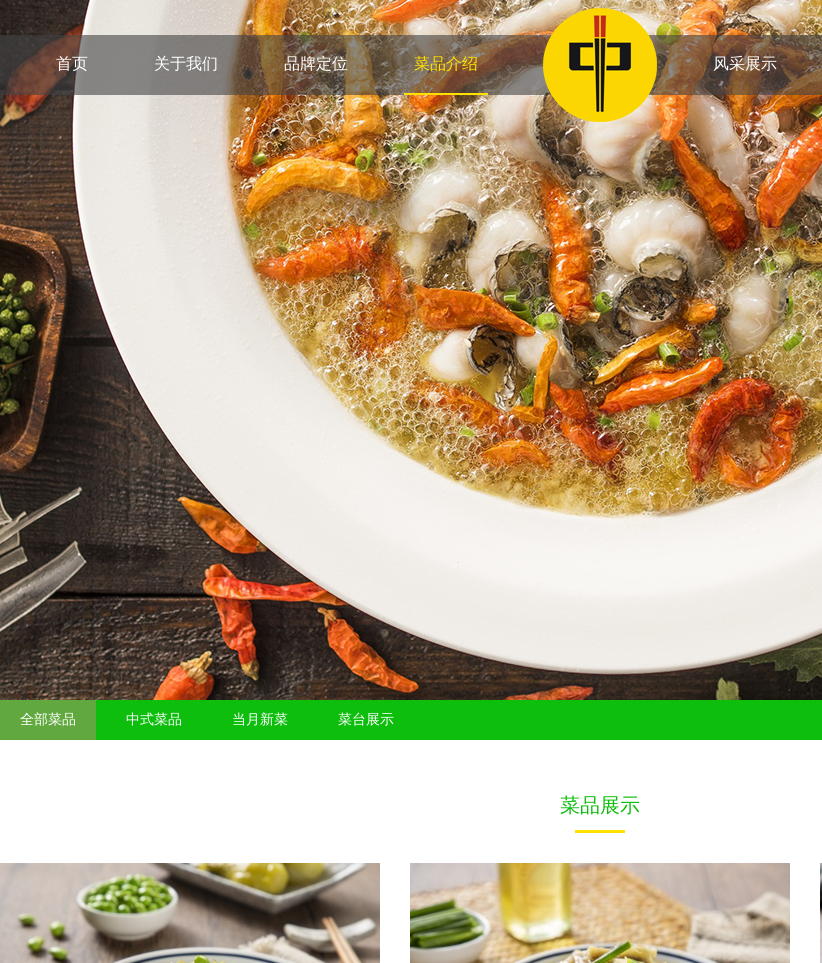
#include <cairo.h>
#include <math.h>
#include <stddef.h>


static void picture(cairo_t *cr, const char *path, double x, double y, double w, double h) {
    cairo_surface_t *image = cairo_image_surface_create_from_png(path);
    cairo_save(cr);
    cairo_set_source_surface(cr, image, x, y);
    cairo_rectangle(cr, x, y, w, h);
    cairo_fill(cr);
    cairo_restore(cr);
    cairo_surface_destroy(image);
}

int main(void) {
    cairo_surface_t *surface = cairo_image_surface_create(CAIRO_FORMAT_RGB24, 822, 963);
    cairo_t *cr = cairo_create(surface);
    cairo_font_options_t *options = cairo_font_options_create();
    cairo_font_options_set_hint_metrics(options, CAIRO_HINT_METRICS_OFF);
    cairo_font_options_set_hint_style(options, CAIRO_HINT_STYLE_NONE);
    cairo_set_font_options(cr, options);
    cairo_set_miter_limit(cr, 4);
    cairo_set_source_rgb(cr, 1, 1, 1);
    cairo_paint(cr);
    picture(cr, "img2.png", 0, 0, 822, 700);
    cairo_set_source_rgba(cr, 0.263, 0.263, 0.267, 0.6);
    cairo_rectangle(cr, 0, 35, 822, 60);
    cairo_fill(cr);
    cairo_select_font_face(cr, "WenQuanYi Zen Hei Medium", CAIRO_FONT_SLANT_NORMAL, CAIRO_FONT_WEIGHT_NORMAL);
    cairo_set_font_size(cr, 16);
    cairo_set_source_rgb(cr, 1, 1, 1);
    cairo_move_to(cr, 56, 69);
    cairo_show_text(cr, "首页");
    cairo_move_to(cr, 154, 69);
    cairo_show_text(cr, "关于我们");
    cairo_move_to(cr, 284, 69);
    cairo_show_text(cr, "品牌定位");
    cairo_set_source_rgb(cr, 1, 0.882, 0);
    cairo_rectangle(cr, 404, 93, 84, 2);
    cairo_fill(cr);
    cairo_move_to(cr, 414, 69);
    cairo_show_text(cr, "菜品介绍");
    picture(cr, "img1.png", 543, 8, 114, 114);
    cairo_set_source_rgb(cr, 1, 1, 1);
    cairo_move_to(cr, 713, 69);
    cairo_show_text(cr, "风采展示");
    cairo_set_source_rgb(cr, 0.051, 0.745, 0.051);
    cairo_rectangle(cr, 96, 700, 726, 40);
    cairo_fill(cr);
    cairo_set_source_rgb(cr, 0.38, 0.663, 0.247);
    cairo_rectangle(cr, 0, 700, 96, 40);
    cairo_fill(cr);
    cairo_set_font_size(cr, 14);
    cairo_set_source_rgb(cr, 1, 1, 1);
    cairo_move_to(cr, 20, 724);
    cairo_show_text(cr, "全部菜品");
    cairo_move_to(cr, 126, 724);
    cairo_show_text(cr, "中式菜品");
    cairo_move_to(cr, 232, 724);
    cairo_show_text(cr, "当月新菜");
    cairo_move_to(cr, 338, 724);
    cairo_show_text(cr, "菜台展示");
    cairo_set_font_size(cr, 20);
    cairo_set_source_rgb(cr, 0.051, 0.745, 0.051);
    cairo_move_to(cr, 560, 812);
    cairo_show_text(cr, "菜品展示");
    cairo_set_source_rgb(cr, 1, 0.882, 0);
    cairo_rectangle(cr, 575, 830, 50, 3);
    cairo_fill(cr);
    picture(cr, "img3.png", 0, 863, 380, 100);
    picture(cr, "img4.png", 410, 863, 380, 100);
    picture(cr, "img5.png", 820, 863, 2, 100);
    cairo_surface_write_to_png(surface, "page.png");
    cairo_font_options_destroy(options);
    cairo_destroy(cr);
    cairo_surface_destroy(surface);
    return 0;
}
